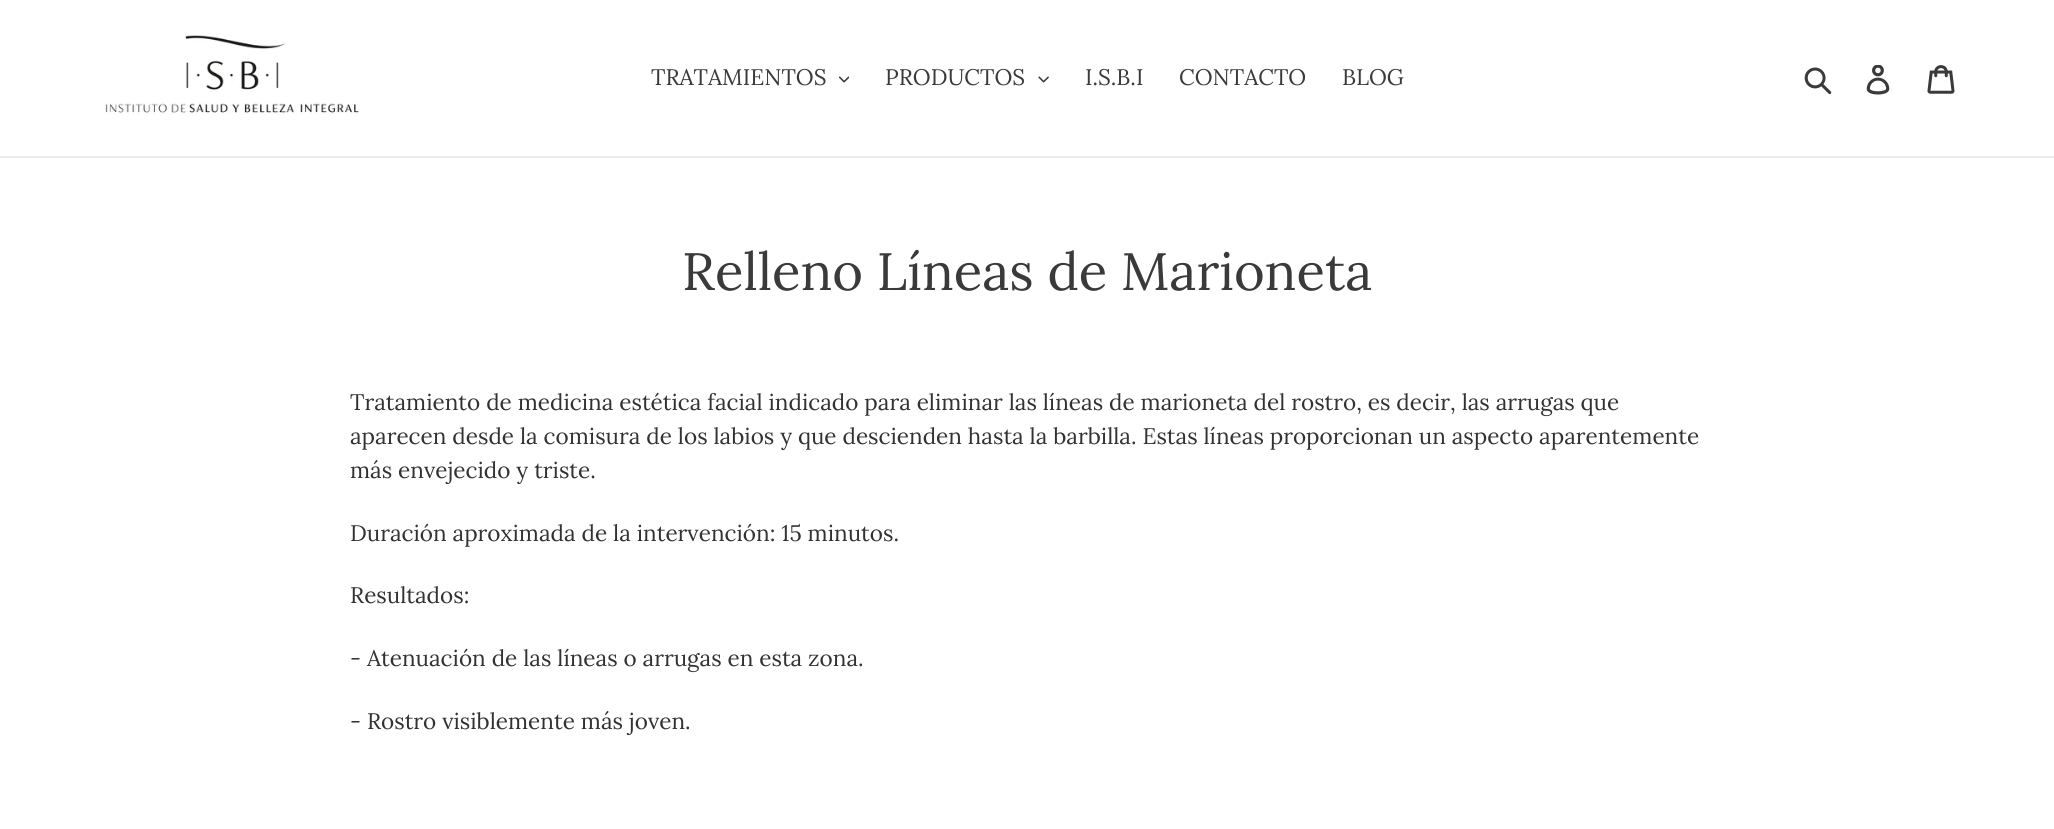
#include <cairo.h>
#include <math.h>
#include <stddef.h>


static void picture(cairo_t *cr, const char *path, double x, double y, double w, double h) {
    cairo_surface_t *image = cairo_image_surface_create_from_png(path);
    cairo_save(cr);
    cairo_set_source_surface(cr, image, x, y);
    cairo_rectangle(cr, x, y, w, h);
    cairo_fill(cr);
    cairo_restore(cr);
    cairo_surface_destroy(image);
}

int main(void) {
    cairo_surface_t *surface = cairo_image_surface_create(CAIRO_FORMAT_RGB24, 2054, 829);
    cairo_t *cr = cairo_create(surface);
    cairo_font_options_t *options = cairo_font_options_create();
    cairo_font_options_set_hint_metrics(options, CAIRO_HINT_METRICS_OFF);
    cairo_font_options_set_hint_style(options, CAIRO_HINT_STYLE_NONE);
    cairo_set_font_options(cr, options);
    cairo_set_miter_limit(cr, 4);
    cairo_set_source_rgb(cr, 1, 1, 1);
    cairo_paint(cr);
    cairo_set_source_rgb(cr, 0.922, 0.922, 0.922);
    cairo_rectangle(cr, 0, 156, 2054, 2);
    cairo_fill(cr);
    picture(cr, "img1.png", 105, 35, 254, 80);
    cairo_select_font_face(cr, "Lora", CAIRO_FONT_SLANT_NORMAL, CAIRO_FONT_WEIGHT_NORMAL);
    cairo_set_font_size(cr, 22.5);
    cairo_set_source_rgb(cr, 0.227, 0.227, 0.227);
    cairo_move_to(cr, 651, 85);
    cairo_show_text(cr, "TRATAMIENTOS");
    picture(cr, "img2.png", 839, 76, 10, 7);
    cairo_move_to(cr, 885, 85);
    cairo_show_text(cr, "PRODUCTOS");
    picture(cr, "img3.png", 1038, 76, 11, 7);
    cairo_move_to(cr, 1085, 85);
    cairo_show_text(cr, "I.S.B.I");
    cairo_move_to(cr, 1179, 85);
    cairo_show_text(cr, "CONTACTO");
    cairo_move_to(cr, 1342, 85);
    cairo_show_text(cr, "BLOG");
    picture(cr, "img4.png", 1804, 67, 28, 28);
    picture(cr, "img5.png", 1866, 65, 24, 30);
    picture(cr, "img6.png", 1927, 65, 28, 29);
    cairo_set_font_size(cr, 52.5);
    cairo_move_to(cr, 682, 290);
    cairo_show_text(cr, "Relleno Líneas de Marioneta");
    cairo_set_font_size(cr, 22.5);
    cairo_set_source_rgb(cr, 0.2, 0.196, 0.196);
    cairo_move_to(cr, 350, 410);
    cairo_show_text(cr, "Tratamiento de medicina estética facial indicado para eliminar las líneas de marioneta del rostro, es decir, las arrugas que");
    cairo_move_to(cr, 350, 444);
    cairo_show_text(cr, "aparecen desde la comisura de los labios y que descienden hasta la barbilla. Estas líneas proporcionan un aspecto aparentemente");
    cairo_move_to(cr, 350, 478);
    cairo_show_text(cr, "más envejecido y triste.");
    cairo_move_to(cr, 350, 541);
    cairo_show_text(cr, "Duración aproximada de la intervención: 15 minutos.");
    cairo_move_to(cr, 350, 603);
    cairo_show_text(cr, "Resultados:");
    cairo_move_to(cr, 350, 666);
    cairo_show_text(cr, "- Atenuación de las líneas o arrugas en esta zona.");
    cairo_move_to(cr, 350, 729);
    cairo_show_text(cr, "- Rostro visiblemente más joven.");
    cairo_surface_write_to_png(surface, "page.png");
    cairo_font_options_destroy(options);
    cairo_destroy(cr);
    cairo_surface_destroy(surface);
    return 0;
}
